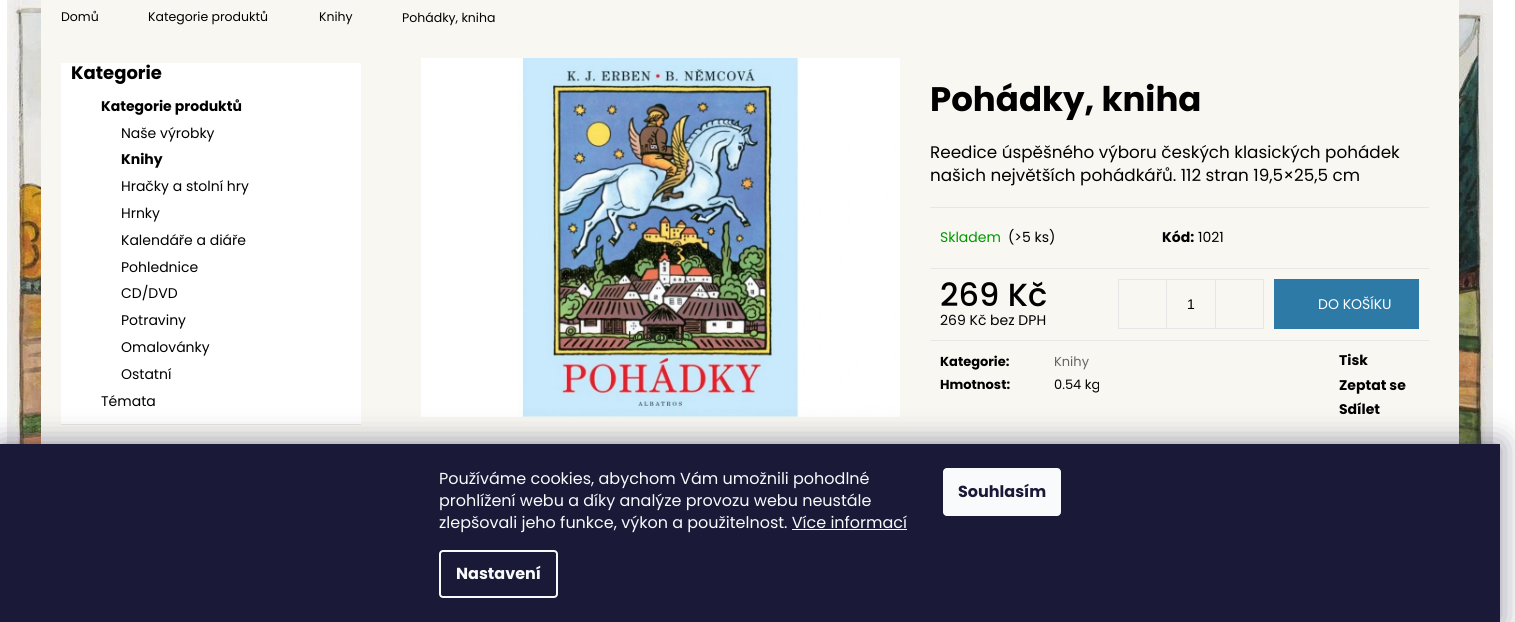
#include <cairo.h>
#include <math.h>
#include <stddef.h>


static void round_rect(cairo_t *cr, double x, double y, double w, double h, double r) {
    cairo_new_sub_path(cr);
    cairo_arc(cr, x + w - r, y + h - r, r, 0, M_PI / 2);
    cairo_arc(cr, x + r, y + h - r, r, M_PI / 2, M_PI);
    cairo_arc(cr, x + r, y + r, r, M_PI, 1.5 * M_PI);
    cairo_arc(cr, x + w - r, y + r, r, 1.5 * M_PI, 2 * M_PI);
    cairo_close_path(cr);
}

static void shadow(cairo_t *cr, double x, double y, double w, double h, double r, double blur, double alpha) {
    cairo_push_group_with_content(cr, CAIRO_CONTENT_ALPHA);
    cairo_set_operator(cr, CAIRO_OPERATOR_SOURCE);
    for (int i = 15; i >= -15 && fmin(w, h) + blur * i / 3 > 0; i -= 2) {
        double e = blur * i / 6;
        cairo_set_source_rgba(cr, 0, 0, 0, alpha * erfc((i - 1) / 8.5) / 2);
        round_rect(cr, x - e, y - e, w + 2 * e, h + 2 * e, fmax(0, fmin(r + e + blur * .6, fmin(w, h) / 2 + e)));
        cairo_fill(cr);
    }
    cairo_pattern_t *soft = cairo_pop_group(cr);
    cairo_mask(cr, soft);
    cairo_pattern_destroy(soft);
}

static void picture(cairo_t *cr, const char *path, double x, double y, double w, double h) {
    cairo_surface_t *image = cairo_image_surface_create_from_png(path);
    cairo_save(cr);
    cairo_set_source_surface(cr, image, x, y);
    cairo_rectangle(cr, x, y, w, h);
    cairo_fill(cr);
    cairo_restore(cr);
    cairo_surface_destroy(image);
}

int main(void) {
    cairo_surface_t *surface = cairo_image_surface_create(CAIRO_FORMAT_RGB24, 1515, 622);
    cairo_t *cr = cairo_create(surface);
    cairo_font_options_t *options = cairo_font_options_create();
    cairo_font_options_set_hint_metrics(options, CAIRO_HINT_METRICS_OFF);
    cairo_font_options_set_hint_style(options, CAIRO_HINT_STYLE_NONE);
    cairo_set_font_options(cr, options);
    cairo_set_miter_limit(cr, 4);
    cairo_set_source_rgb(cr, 1, 1, 1);
    cairo_paint(cr);
    picture(cr, "img1.png", 7, 0, 1486, 444);
    cairo_set_source_rgb(cr, 0.969, 0.965, 0.949);
    cairo_rectangle(cr, 41, 0, 1418, 444);
    cairo_fill(cr);
    cairo_select_font_face(cr, "Poppins", CAIRO_FONT_SLANT_NORMAL, CAIRO_FONT_WEIGHT_NORMAL);
    cairo_set_font_size(cr, 12.5);
    cairo_set_source_rgb(cr, 0, 0, 0);
    cairo_move_to(cr, 61, 21);
    cairo_show_text(cr, "Domů");
    cairo_move_to(cr, 148, 21);
    cairo_show_text(cr, "Kategorie produktů");
    cairo_move_to(cr, 319, 21);
    cairo_show_text(cr, "Knihy");
    cairo_move_to(cr, 402, 22);
    cairo_show_text(cr, "Pohádky, kniha");
    cairo_set_source_rgb(cr, 1, 1, 1);
    cairo_rectangle(cr, 61, 63, 300, 361);
    cairo_fill(cr);
    cairo_select_font_face(cr, "Poppins", CAIRO_FONT_SLANT_NORMAL, CAIRO_FONT_WEIGHT_BOLD);
    cairo_set_font_size(cr, 18);
    cairo_set_source_rgb(cr, 0, 0, 0);
    cairo_move_to(cr, 71, 79);
    cairo_show_text(cr, "Kategorie");
    cairo_set_font_size(cr, 14);
    cairo_move_to(cr, 101, 111);
    cairo_show_text(cr, "Kategorie produktů");
    cairo_select_font_face(cr, "Poppins", CAIRO_FONT_SLANT_NORMAL, CAIRO_FONT_WEIGHT_NORMAL);
    cairo_move_to(cr, 121, 138);
    cairo_show_text(cr, "Naše výrobky");
    cairo_select_font_face(cr, "Poppins", CAIRO_FONT_SLANT_NORMAL, CAIRO_FONT_WEIGHT_BOLD);
    cairo_move_to(cr, 121, 164);
    cairo_show_text(cr, "Knihy");
    cairo_select_font_face(cr, "Poppins", CAIRO_FONT_SLANT_NORMAL, CAIRO_FONT_WEIGHT_NORMAL);
    cairo_move_to(cr, 121, 191);
    cairo_show_text(cr, "Hračky a stolní hry");
    cairo_move_to(cr, 121, 218);
    cairo_show_text(cr, "Hrnky");
    cairo_move_to(cr, 121, 245);
    cairo_show_text(cr, "Kalendáře a diáře");
    cairo_move_to(cr, 121, 272);
    cairo_show_text(cr, "Pohlednice");
    cairo_move_to(cr, 121, 298);
    cairo_show_text(cr, "CD/DVD");
    cairo_move_to(cr, 121, 325);
    cairo_show_text(cr, "Potraviny");
    cairo_move_to(cr, 121, 352);
    cairo_show_text(cr, "Omalovánky");
    cairo_move_to(cr, 121, 379);
    cairo_show_text(cr, "Ostatní");
    cairo_move_to(cr, 101, 406);
    cairo_show_text(cr, "Témata");
    cairo_set_source_rgb(cr, 0.902, 0.902, 0.902);
    cairo_rectangle(cr, 61, 424, 300, 1);
    cairo_fill(cr);
    picture(cr, "img2.png", 421, 58, 479, 359);
    cairo_set_source_rgb(cr, 0.145, 0.169, 0.11);
    cairo_move_to(cr, 628, 341);
    cairo_show_text(cr, "Loading..");
    cairo_select_font_face(cr, "Poppins", CAIRO_FONT_SLANT_NORMAL, CAIRO_FONT_WEIGHT_BOLD);
    cairo_set_font_size(cr, 34);
    cairo_set_source_rgb(cr, 0, 0, 0);
    cairo_move_to(cr, 930, 111);
    cairo_show_text(cr, "Pohádky, kniha");
    cairo_select_font_face(cr, "Poppins", CAIRO_FONT_SLANT_NORMAL, CAIRO_FONT_WEIGHT_NORMAL);
    cairo_set_font_size(cr, 16.8);
    cairo_move_to(cr, 930, 158);
    cairo_show_text(cr, "Reedice úspěšného výboru českých klasických pohádek");
    cairo_move_to(cr, 930, 181);
    cairo_show_text(cr, "našich největších pohádkářů. 112 stran 19,5×25,5 cm");
    cairo_set_source_rgb(cr, 0.906, 0.906, 0.906);
    cairo_rectangle(cr, 930, 207, 499, 1);
    cairo_fill(cr);
    cairo_rectangle(cr, 930, 268, 499, 1);
    cairo_fill(cr);
    cairo_set_font_size(cr, 14);
    cairo_set_source_rgb(cr, 0, 0.6, 0.004);
    cairo_move_to(cr, 940, 242);
    cairo_show_text(cr, "Skladem");
    cairo_set_source_rgb(cr, 0, 0, 0);
    cairo_move_to(cr, 1008, 242);
    cairo_show_text(cr, "(>5 ks)");
    cairo_select_font_face(cr, "Poppins", CAIRO_FONT_SLANT_NORMAL, CAIRO_FONT_WEIGHT_BOLD);
    cairo_move_to(cr, 1162, 242);
    cairo_show_text(cr, "Kód:");
    cairo_select_font_face(cr, "Poppins", CAIRO_FONT_SLANT_NORMAL, CAIRO_FONT_WEIGHT_NORMAL);
    cairo_move_to(cr, 1198, 242);
    cairo_show_text(cr, "1021");
    cairo_set_source_rgb(cr, 0.906, 0.906, 0.906);
    cairo_rectangle(cr, 930, 340, 499, 1);
    cairo_fill(cr);
    cairo_select_font_face(cr, "Poppins Medium", CAIRO_FONT_SLANT_NORMAL, CAIRO_FONT_WEIGHT_NORMAL);
    cairo_set_font_size(cr, 32);
    cairo_set_source_rgb(cr, 0, 0, 0);
    cairo_move_to(cr, 940, 306);
    cairo_show_text(cr, "269 Kč");
    cairo_select_font_face(cr, "Poppins", CAIRO_FONT_SLANT_NORMAL, CAIRO_FONT_WEIGHT_NORMAL);
    cairo_set_font_size(cr, 14);
    cairo_move_to(cr, 940, 325);
    cairo_show_text(cr, "269 Kč bez DPH");
    cairo_rectangle(cr, 1118.5, 279.5, 145, 49);
    cairo_set_source_rgb(cr, 0.902, 0.902, 0.902);
    cairo_set_line_width(cr, 1);
    cairo_stroke(cr);
    cairo_rectangle(cr, 1166, 280, 1, 48);
    cairo_fill(cr);
    cairo_select_font_face(cr, "Liberation Sans", CAIRO_FONT_SLANT_NORMAL, CAIRO_FONT_WEIGHT_NORMAL);
    cairo_set_source_rgb(cr, 0, 0, 0);
    cairo_move_to(cr, 1187, 309);
    cairo_show_text(cr, "1");
    cairo_set_source_rgb(cr, 0.902, 0.902, 0.902);
    cairo_rectangle(cr, 1215, 280, 1, 48);
    cairo_fill(cr);
    cairo_set_source_rgb(cr, 0.176, 0.478, 0.655);
    cairo_rectangle(cr, 1274, 279, 145, 50);
    cairo_fill(cr);
    cairo_select_font_face(cr, "Poppins", CAIRO_FONT_SLANT_NORMAL, CAIRO_FONT_WEIGHT_NORMAL);
    cairo_set_source_rgb(cr, 1, 1, 1);
    cairo_move_to(cr, 1318, 309);
    cairo_show_text(cr, "DO KOŠÍKU");
    cairo_select_font_face(cr, "Poppins", CAIRO_FONT_SLANT_NORMAL, CAIRO_FONT_WEIGHT_BOLD);
    cairo_set_font_size(cr, 13);
    cairo_set_source_rgb(cr, 0, 0, 0);
    cairo_move_to(cr, 940, 366);
    cairo_show_text(cr, "Kategorie:");
    cairo_select_font_face(cr, "Poppins", CAIRO_FONT_SLANT_NORMAL, CAIRO_FONT_WEIGHT_NORMAL);
    cairo_set_source_rgb(cr, 0.396, 0.396, 0.396);
    cairo_move_to(cr, 1054, 366);
    cairo_show_text(cr, "Knihy");
    cairo_select_font_face(cr, "Poppins", CAIRO_FONT_SLANT_NORMAL, CAIRO_FONT_WEIGHT_BOLD);
    cairo_set_source_rgb(cr, 0, 0, 0);
    cairo_move_to(cr, 940, 389);
    cairo_show_text(cr, "Hmotnost:");
    cairo_select_font_face(cr, "Poppins", CAIRO_FONT_SLANT_NORMAL, CAIRO_FONT_WEIGHT_NORMAL);
    cairo_move_to(cr, 1054, 389);
    cairo_show_text(cr, "0.54 kg");
    cairo_select_font_face(cr, "Poppins", CAIRO_FONT_SLANT_NORMAL, CAIRO_FONT_WEIGHT_BOLD);
    cairo_set_font_size(cr, 14);
    cairo_move_to(cr, 1339, 365);
    cairo_show_text(cr, "Tisk");
    cairo_move_to(cr, 1339, 390);
    cairo_show_text(cr, "Zeptat se");
    cairo_move_to(cr, 1339, 414);
    cairo_show_text(cr, "Sdílet");
    cairo_set_source_rgb(cr, 0.106, 0.098, 0.224);
    shadow(cr, 0, 444, 1500, 178, 0, 15, 0.5);
    cairo_set_source_rgb(cr, 0.102, 0.098, 0.216);
    cairo_rectangle(cr, 0, 444, 1500, 178);
    cairo_fill(cr);
    cairo_select_font_face(cr, "Poppins", CAIRO_FONT_SLANT_NORMAL, CAIRO_FONT_WEIGHT_NORMAL);
    cairo_set_font_size(cr, 16);
    cairo_set_source_rgb(cr, 0.973, 0.98, 0.984);
    cairo_move_to(cr, 439, 484);
    cairo_show_text(cr, "Používáme cookies, abychom Vám umožnili pohodlné");
    cairo_move_to(cr, 439, 506);
    cairo_show_text(cr, "prohlížení webu a díky analýze provozu webu neustále");
    cairo_move_to(cr, 439, 528);
    cairo_show_text(cr, "zlepšovali jeho funkce, výkon a použitelnost. Více informací");
    cairo_rectangle(cr, 792, 529, 115, 1);
    cairo_fill(cr);
    round_rect(cr, 440, 551, 117, 46, 3);
    cairo_set_line_width(cr, 2);
    cairo_stroke(cr);
    cairo_select_font_face(cr, "Poppins", CAIRO_FONT_SLANT_NORMAL, CAIRO_FONT_WEIGHT_BOLD);
    cairo_move_to(cr, 456, 579);
    cairo_show_text(cr, "Nastavení");
    round_rect(cr, 943, 468, 118, 48, 4);
    cairo_fill(cr);
    cairo_set_source_rgb(cr, 0.102, 0.098, 0.216);
    cairo_move_to(cr, 958, 497);
    cairo_show_text(cr, "Souhlasím");
    cairo_surface_write_to_png(surface, "page.png");
    cairo_font_options_destroy(options);
    cairo_destroy(cr);
    cairo_surface_destroy(surface);
    return 0;
}
